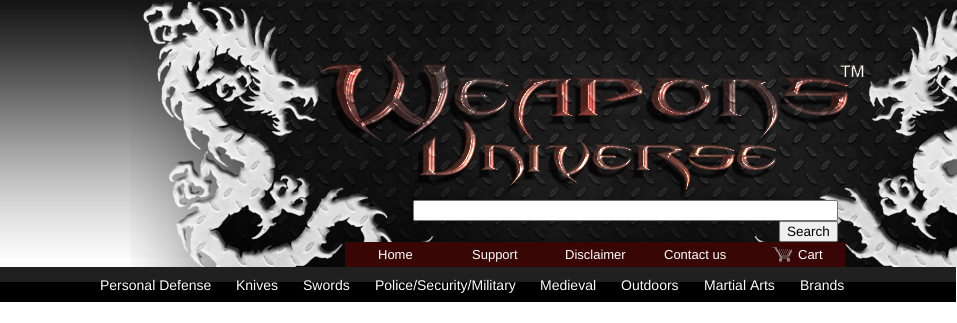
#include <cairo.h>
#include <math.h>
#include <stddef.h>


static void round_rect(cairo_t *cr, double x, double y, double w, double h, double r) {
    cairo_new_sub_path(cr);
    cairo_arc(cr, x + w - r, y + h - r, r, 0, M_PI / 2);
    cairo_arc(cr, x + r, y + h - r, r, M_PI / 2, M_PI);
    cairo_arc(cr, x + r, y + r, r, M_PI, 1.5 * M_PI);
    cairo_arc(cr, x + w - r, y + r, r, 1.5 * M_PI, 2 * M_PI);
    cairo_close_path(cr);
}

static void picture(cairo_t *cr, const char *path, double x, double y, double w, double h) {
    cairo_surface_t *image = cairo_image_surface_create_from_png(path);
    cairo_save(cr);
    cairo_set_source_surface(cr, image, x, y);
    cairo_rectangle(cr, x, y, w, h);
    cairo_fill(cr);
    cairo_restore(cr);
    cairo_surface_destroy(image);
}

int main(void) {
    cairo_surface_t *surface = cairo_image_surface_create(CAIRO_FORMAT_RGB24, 957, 323);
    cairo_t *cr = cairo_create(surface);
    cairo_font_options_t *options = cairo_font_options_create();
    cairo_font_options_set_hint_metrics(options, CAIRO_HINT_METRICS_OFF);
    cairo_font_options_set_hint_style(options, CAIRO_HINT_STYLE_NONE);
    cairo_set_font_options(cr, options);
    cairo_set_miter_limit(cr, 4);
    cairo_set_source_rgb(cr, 1, 1, 1);
    cairo_paint(cr);
    picture(cr, "img1.png", 0, 0, 957, 258);
    picture(cr, "img2.png", 130, 2, 827, 265);
    cairo_set_source_rgb(cr, 1, 1, 1);
    round_rect(cr, 413.5, 200.5, 424, 20, 1.5);
    cairo_fill_preserve(cr);
    cairo_set_source_rgb(cr, 0.463, 0.463, 0.463);
    cairo_set_line_width(cr, 1);
    cairo_stroke(cr);
    cairo_set_source_rgb(cr, 0.937, 0.937, 0.937);
    round_rect(cr, 779.5, 221.5, 58, 20, 1.5);
    cairo_fill_preserve(cr);
    cairo_set_source_rgb(cr, 0.463, 0.463, 0.463);
    cairo_stroke(cr);
    cairo_select_font_face(cr, "Liberation Sans", CAIRO_FONT_SLANT_NORMAL, CAIRO_FONT_WEIGHT_NORMAL);
    cairo_set_font_size(cr, 13.5);
    cairo_set_source_rgb(cr, 0, 0, 0);
    cairo_move_to(cr, 787, 236);
    cairo_show_text(cr, "Search");
    cairo_set_source_rgb(cr, 0.224, 0.027, 0.027);
    cairo_rectangle(cr, 345, 242, 500, 25);
    cairo_fill(cr);
    cairo_set_font_size(cr, 13);
    cairo_set_source_rgb(cr, 0.992, 0.992, 0.992);
    cairo_move_to(cr, 378, 259);
    cairo_show_text(cr, "Home");
    cairo_move_to(cr, 472, 259);
    cairo_show_text(cr, "Support");
    cairo_move_to(cr, 565, 259);
    cairo_show_text(cr, "Disclaimer");
    cairo_move_to(cr, 664, 259);
    cairo_show_text(cr, "Contact us");
    picture(cr, "img3.png", 772, 247, 20, 15);
    cairo_move_to(cr, 798, 259);
    cairo_show_text(cr, "Cart");
    picture(cr, "img4.png", 0, 267, 956, 35);
    cairo_set_font_size(cr, 14);
    cairo_move_to(cr, 100, 290);
    cairo_show_text(cr, "Personal Defense");
    cairo_move_to(cr, 236, 290);
    cairo_show_text(cr, "Knives");
    cairo_move_to(cr, 303, 290);
    cairo_show_text(cr, "Swords");
    cairo_move_to(cr, 375, 290);
    cairo_show_text(cr, "Police/Security/Military");
    cairo_move_to(cr, 540, 290);
    cairo_show_text(cr, "Medieval");
    cairo_move_to(cr, 621, 290);
    cairo_show_text(cr, "Outdoors");
    cairo_move_to(cr, 704, 290);
    cairo_show_text(cr, "Martial Arts");
    cairo_move_to(cr, 800, 290);
    cairo_show_text(cr, "Brands");
    cairo_surface_write_to_png(surface, "page.png");
    cairo_font_options_destroy(options);
    cairo_destroy(cr);
    cairo_surface_destroy(surface);
    return 0;
}
